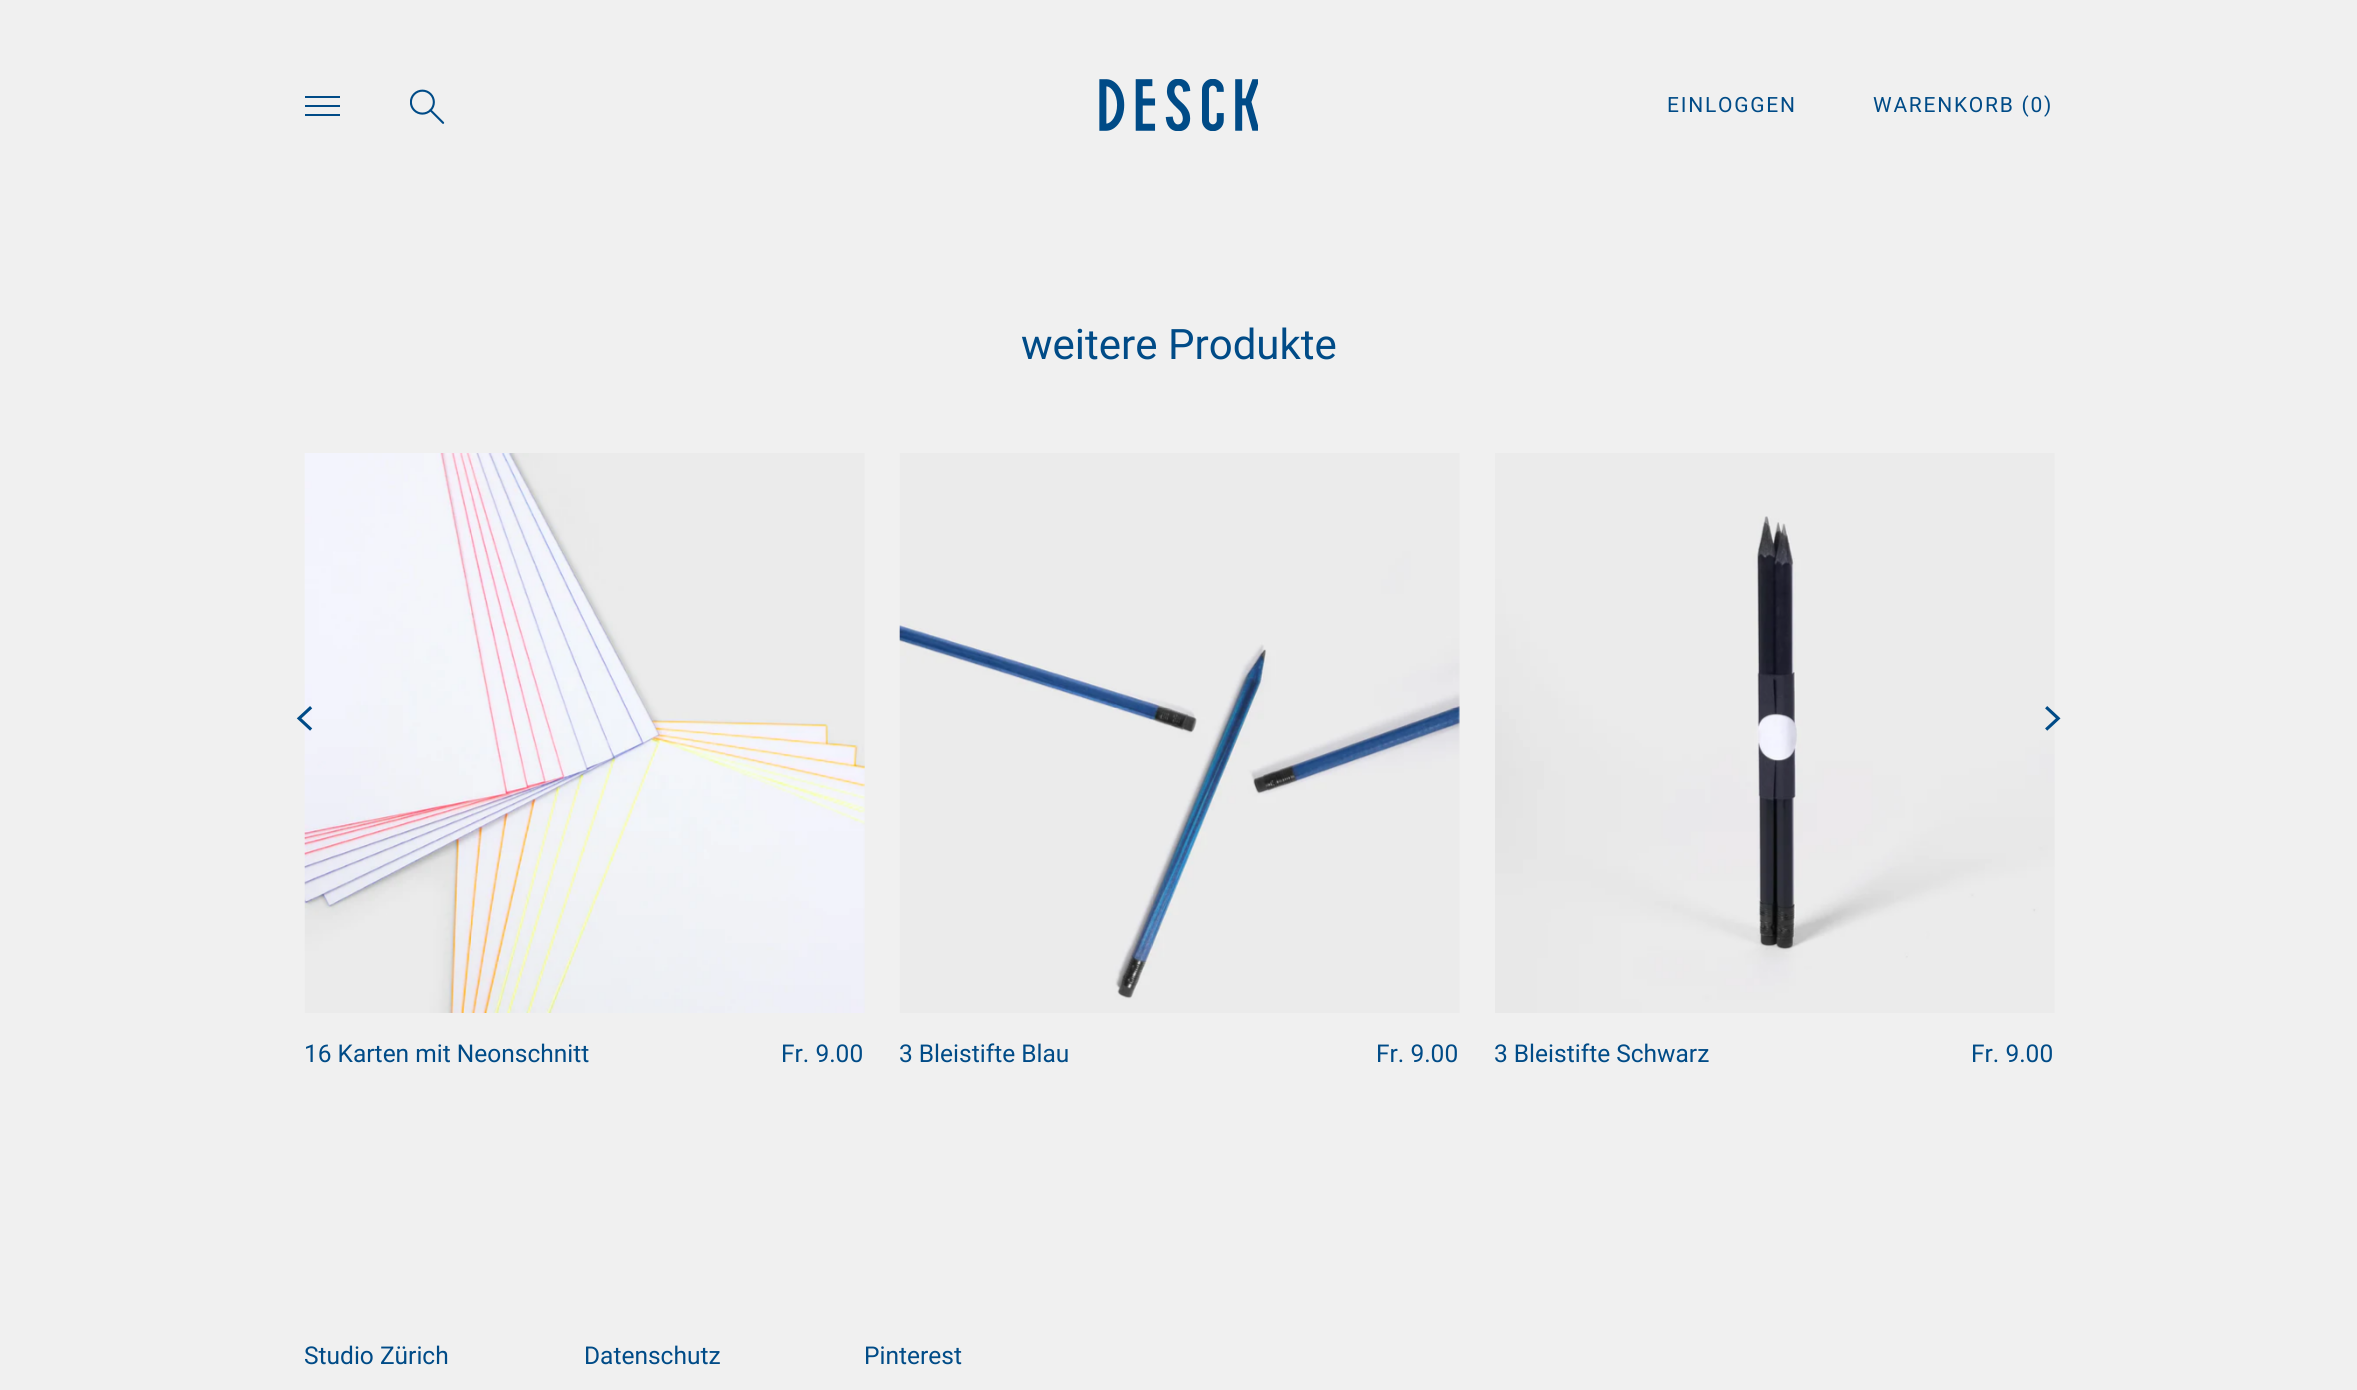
#include <cairo.h>
#include <math.h>
#include <stddef.h>


static void spaced_text(cairo_t *cr, double x, double y, const char *s, double letter, double word) {
    cairo_move_to(cr, x, y);
    while (*s) {
        char ch[5] = {0};
        int n = 0;
        do ch[n++] = *s++; while ((*s & 0xC0) == 0x80);
        cairo_show_text(cr, ch);
        cairo_rel_move_to(cr, letter + word * (*ch == ' '), 0);
    }
}

static void picture(cairo_t *cr, const char *path, double x, double y, double w, double h) {
    cairo_surface_t *image = cairo_image_surface_create_from_png(path);
    cairo_save(cr);
    cairo_set_source_surface(cr, image, x, y);
    cairo_rectangle(cr, x, y, w, h);
    cairo_fill(cr);
    cairo_restore(cr);
    cairo_surface_destroy(image);
}

int main(void) {
    cairo_surface_t *surface = cairo_image_surface_create(CAIRO_FORMAT_RGB24, 2357, 1390);
    cairo_t *cr = cairo_create(surface);
    cairo_font_options_t *options = cairo_font_options_create();
    cairo_font_options_set_hint_metrics(options, CAIRO_HINT_METRICS_OFF);
    cairo_font_options_set_hint_style(options, CAIRO_HINT_STYLE_NONE);
    cairo_set_font_options(cr, options);
    cairo_set_miter_limit(cr, 4);
    cairo_set_source_rgb(cr, 0.941, 0.941, 0.941);
    cairo_paint(cr);
    cairo_set_source_rgb(cr, 0, 0.294, 0.529);
    cairo_rectangle(cr, 305, 96, 35, 2);
    cairo_fill(cr);
    cairo_rectangle(cr, 305, 105, 35, 2);
    cairo_fill(cr);
    cairo_rectangle(cr, 305, 114, 35, 2);
    cairo_fill(cr);
    picture(cr, "img1.png", 410, 89, 35, 35);
    picture(cr, "img2.png", 1099, 79, 159, 52);
    cairo_select_font_face(cr, "Roboto", CAIRO_FONT_SLANT_NORMAL, CAIRO_FONT_WEIGHT_NORMAL);
    cairo_set_font_size(cr, 21);
    spaced_text(cr, 1667, 112, "EINLOGGEN", 1.75, 0);
    spaced_text(cr, 1873, 112, "WARENKORB (0)", 1.75, 0);
    cairo_set_font_size(cr, 42);
    cairo_move_to(cr, 1021, 359);
    cairo_show_text(cr, "weitere Produkte");
    picture(cr, "img5.png", 304, 453, 561, 560);
    picture(cr, "img3.png", 296, 706, 17, 25);
    picture(cr, "img7.png", 1495, 453, 560, 560);
    picture(cr, "img4.png", 2045, 706, 16, 25);
    cairo_set_font_size(cr, 24.5);
    cairo_move_to(cr, 304, 1062);
    cairo_show_text(cr, "16 Karten mit Neonschnitt");
    cairo_move_to(cr, 781, 1062);
    cairo_show_text(cr, "Fr. 9.00");
    picture(cr, "img6.png", 899, 453, 561, 560);
    cairo_move_to(cr, 899, 1062);
    cairo_show_text(cr, "3 Bleistifte Blau");
    cairo_move_to(cr, 1376, 1062);
    cairo_show_text(cr, "Fr. 9.00");
    cairo_move_to(cr, 1494, 1062);
    cairo_show_text(cr, "3 Bleistifte Schwarz");
    cairo_move_to(cr, 1971, 1062);
    cairo_show_text(cr, "Fr. 9.00");
    cairo_move_to(cr, 304, 1364);
    cairo_show_text(cr, "Studio Zürich");
    cairo_move_to(cr, 584, 1364);
    cairo_show_text(cr, "Datenschutz");
    cairo_move_to(cr, 864, 1364);
    cairo_show_text(cr, "Pinterest");
    cairo_surface_write_to_png(surface, "page.png");
    cairo_font_options_destroy(options);
    cairo_destroy(cr);
    cairo_surface_destroy(surface);
    return 0;
}
